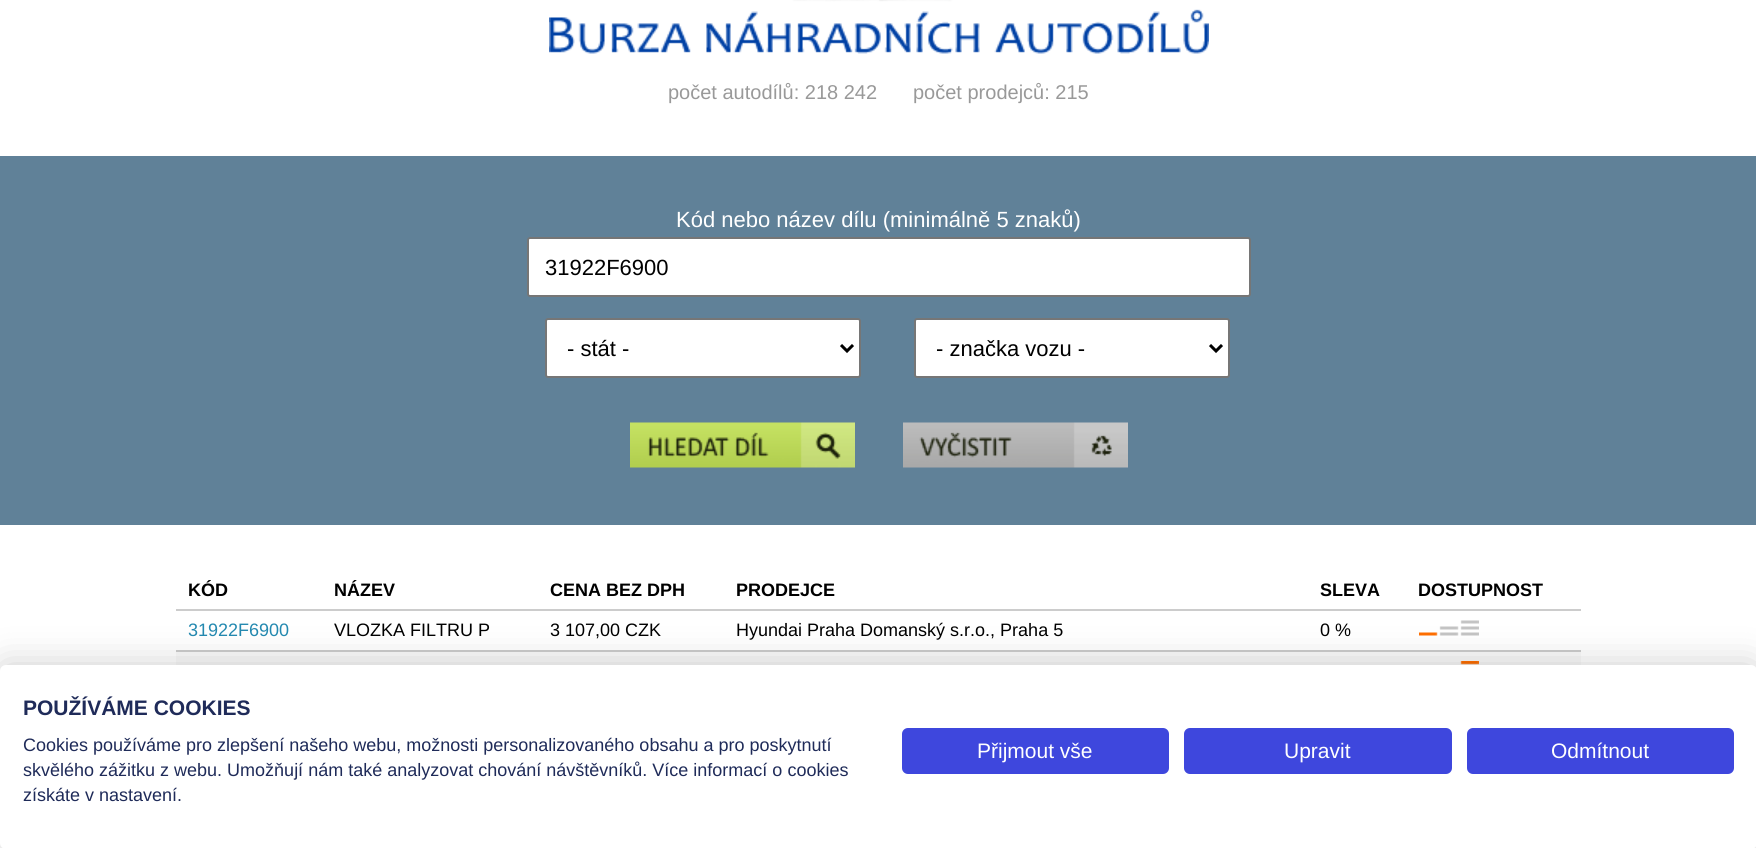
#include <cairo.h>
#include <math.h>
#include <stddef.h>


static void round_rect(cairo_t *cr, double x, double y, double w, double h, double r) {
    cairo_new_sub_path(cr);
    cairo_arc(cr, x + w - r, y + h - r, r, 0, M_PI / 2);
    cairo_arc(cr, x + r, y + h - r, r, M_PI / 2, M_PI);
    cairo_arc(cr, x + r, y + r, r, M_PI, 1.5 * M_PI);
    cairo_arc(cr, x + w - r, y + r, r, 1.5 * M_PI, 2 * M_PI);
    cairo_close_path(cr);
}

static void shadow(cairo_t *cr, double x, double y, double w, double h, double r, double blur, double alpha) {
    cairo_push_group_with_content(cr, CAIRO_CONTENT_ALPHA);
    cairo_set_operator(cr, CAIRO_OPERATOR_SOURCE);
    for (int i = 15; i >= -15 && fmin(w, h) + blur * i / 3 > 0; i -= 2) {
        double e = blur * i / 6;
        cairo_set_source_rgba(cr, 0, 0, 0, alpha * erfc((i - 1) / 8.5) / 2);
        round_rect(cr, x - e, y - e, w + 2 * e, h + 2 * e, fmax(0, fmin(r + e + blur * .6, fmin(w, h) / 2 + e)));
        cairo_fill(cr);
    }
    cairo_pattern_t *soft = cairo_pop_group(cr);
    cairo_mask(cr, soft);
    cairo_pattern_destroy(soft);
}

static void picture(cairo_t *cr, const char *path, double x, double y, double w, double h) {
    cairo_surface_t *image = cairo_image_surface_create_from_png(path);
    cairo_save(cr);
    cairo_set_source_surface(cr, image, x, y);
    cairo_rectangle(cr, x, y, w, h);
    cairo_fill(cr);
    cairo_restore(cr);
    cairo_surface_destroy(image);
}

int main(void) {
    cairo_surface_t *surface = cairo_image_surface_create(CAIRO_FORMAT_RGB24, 1756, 848);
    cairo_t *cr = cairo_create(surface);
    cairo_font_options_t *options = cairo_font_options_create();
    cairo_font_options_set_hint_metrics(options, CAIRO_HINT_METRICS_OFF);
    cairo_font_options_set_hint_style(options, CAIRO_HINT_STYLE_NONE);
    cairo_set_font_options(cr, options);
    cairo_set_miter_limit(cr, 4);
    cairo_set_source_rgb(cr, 1, 1, 1);
    cairo_paint(cr);
    picture(cr, "img1.png", 549, 0, 660, 54);
    cairo_select_font_face(cr, "Liberation Sans", CAIRO_FONT_SLANT_NORMAL, CAIRO_FONT_WEIGHT_NORMAL);
    cairo_set_font_size(cr, 20);
    cairo_set_source_rgb(cr, 0.6, 0.6, 0.6);
    cairo_move_to(cr, 668, 99);
    cairo_show_text(cr, "počet autodílů: 218 242");
    cairo_move_to(cr, 913, 99);
    cairo_show_text(cr, "počet prodejců: 215");
    cairo_set_source_rgb(cr, 0.376, 0.506, 0.596);
    cairo_rectangle(cr, 0, 156, 1756, 369);
    cairo_fill(cr);
    cairo_set_font_size(cr, 22);
    cairo_set_source_rgb(cr, 1, 1, 1);
    cairo_move_to(cr, 676, 227);
    cairo_show_text(cr, "Kód nebo název dílu (minimálně 5 znaků)");
    round_rect(cr, 528, 238, 722, 58, 2);
    cairo_fill_preserve(cr);
    cairo_set_source_rgb(cr, 0.463, 0.463, 0.463);
    cairo_stroke(cr);
    cairo_set_source_rgb(cr, 0, 0, 0);
    cairo_move_to(cr, 545, 275);
    cairo_show_text(cr, "31922F6900");
    cairo_set_source_rgb(cr, 1, 1, 1);
    round_rect(cr, 546, 319, 314, 58, 2);
    cairo_fill_preserve(cr);
    cairo_set_source_rgb(cr, 0.463, 0.463, 0.463);
    cairo_stroke(cr);
    cairo_new_path(cr);
    cairo_move_to(cr, 841, 345);
    cairo_line_to(cr, 847, 351);
    cairo_line_to(cr, 853, 345);
    cairo_set_source_rgb(cr, 0, 0, 0);
    cairo_set_line_width(cr, 3);
    cairo_stroke(cr);
    cairo_move_to(cr, 567, 356);
    cairo_show_text(cr, "- stát -");
    cairo_set_source_rgb(cr, 1, 1, 1);
    round_rect(cr, 915, 319, 314, 58, 2);
    cairo_fill_preserve(cr);
    cairo_set_source_rgb(cr, 0.463, 0.463, 0.463);
    cairo_set_line_width(cr, 2);
    cairo_stroke(cr);
    cairo_new_path(cr);
    cairo_move_to(cr, 1210, 345);
    cairo_line_to(cr, 1216, 351);
    cairo_line_to(cr, 1222, 345);
    cairo_set_source_rgb(cr, 0, 0, 0);
    cairo_set_line_width(cr, 3);
    cairo_stroke(cr);
    cairo_move_to(cr, 936, 356);
    cairo_show_text(cr, "- značka vozu -");
    picture(cr, "img2.png", 630, 422, 225, 46);
    picture(cr, "img3.png", 903, 422, 225, 46);
    cairo_select_font_face(cr, "Liberation Sans", CAIRO_FONT_SLANT_NORMAL, CAIRO_FONT_WEIGHT_BOLD);
    cairo_set_font_size(cr, 18);
    cairo_move_to(cr, 188, 596);
    cairo_show_text(cr, "KÓD");
    cairo_move_to(cr, 334, 596);
    cairo_show_text(cr, "NÁZEV");
    cairo_move_to(cr, 550, 596);
    cairo_show_text(cr, "CENA BEZ DPH");
    cairo_move_to(cr, 736, 596);
    cairo_show_text(cr, "PRODEJCE");
    cairo_move_to(cr, 1320, 596);
    cairo_show_text(cr, "SLEVA");
    cairo_move_to(cr, 1418, 596);
    cairo_show_text(cr, "DOSTUPNOST");
    cairo_set_source_rgb(cr, 0.8, 0.8, 0.8);
    cairo_rectangle(cr, 176, 609, 1405, 2);
    cairo_fill(cr);
    picture(cr, "img4.png", 1419, 620, 60, 16);
    cairo_select_font_face(cr, "Liberation Sans", CAIRO_FONT_SLANT_NORMAL, CAIRO_FONT_WEIGHT_NORMAL);
    cairo_set_source_rgb(cr, 0.137, 0.537, 0.69);
    cairo_move_to(cr, 188, 636);
    cairo_show_text(cr, "31922F6900");
    cairo_set_source_rgb(cr, 0, 0, 0);
    cairo_move_to(cr, 334, 636);
    cairo_show_text(cr, "VLOZKA FILTRU P");
    cairo_move_to(cr, 550, 636);
    cairo_show_text(cr, "3 107,00 CZK");
    cairo_move_to(cr, 736, 636);
    cairo_show_text(cr, "Hyundai Praha Domanský s.r.o., Praha 5");
    cairo_move_to(cr, 1320, 636);
    cairo_show_text(cr, "0 %");
    cairo_set_source_rgb(cr, 0.8, 0.8, 0.8);
    cairo_rectangle(cr, 176, 650, 1405, 2);
    cairo_fill(cr);
    cairo_set_source_rgb(cr, 0.976, 0.976, 0.976);
    cairo_rectangle(cr, 176, 652, 1405, 13);
    cairo_fill(cr);
    picture(cr, "img5.png", 1460, 661, 19, 4);
    cairo_set_source_rgb(cr, 0, 0, 0);
    shadow(cr, 0, 665, 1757, 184, 6, 18, 0.2);
    cairo_set_source_rgb(cr, 1, 1, 1);
    round_rect(cr, 0, 665, 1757, 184, 6);
    cairo_fill(cr);
    cairo_select_font_face(cr, "Liberation Sans", CAIRO_FONT_SLANT_NORMAL, CAIRO_FONT_WEIGHT_BOLD);
    cairo_set_font_size(cr, 21);
    cairo_set_source_rgb(cr, 0.122, 0.169, 0.349);
    cairo_move_to(cr, 23, 715);
    cairo_show_text(cr, "POUŽÍVÁME COOKIES");
    cairo_select_font_face(cr, "Liberation Sans", CAIRO_FONT_SLANT_NORMAL, CAIRO_FONT_WEIGHT_NORMAL);
    cairo_set_font_size(cr, 18);
    cairo_move_to(cr, 23, 751);
    cairo_show_text(cr, "Cookies používáme pro zlepšení našeho webu, možnosti personalizovaného obsahu a pro poskytnutí");
    cairo_move_to(cr, 23, 776);
    cairo_show_text(cr, "skvělého zážitku z webu. Umožňují nám také analyzovat chování návštěvníků. Více informací o cookies");
    cairo_move_to(cr, 23, 801);
    cairo_show_text(cr, "získáte v nastavení.");
    cairo_set_source_rgb(cr, 0.243, 0.278, 0.867);
    round_rect(cr, 903, 729, 265, 44, 5);
    cairo_fill_preserve(cr);
    cairo_set_line_width(cr, 2);
    cairo_stroke(cr);
    cairo_set_font_size(cr, 21);
    cairo_set_source_rgb(cr, 1, 1, 1);
    cairo_move_to(cr, 977, 758);
    cairo_show_text(cr, "Přijmout vše");
    cairo_set_source_rgb(cr, 0.243, 0.278, 0.867);
    round_rect(cr, 1185, 729, 266, 44, 5);
    cairo_fill_preserve(cr);
    cairo_stroke(cr);
    cairo_set_source_rgb(cr, 1, 1, 1);
    cairo_move_to(cr, 1284, 758);
    cairo_show_text(cr, "Upravit");
    cairo_set_source_rgb(cr, 0.243, 0.278, 0.867);
    round_rect(cr, 1468, 729, 265, 44, 5);
    cairo_fill_preserve(cr);
    cairo_stroke(cr);
    cairo_set_source_rgb(cr, 1, 1, 1);
    cairo_move_to(cr, 1551, 758);
    cairo_show_text(cr, "Odmítnout");
    cairo_surface_write_to_png(surface, "page.png");
    cairo_font_options_destroy(options);
    cairo_destroy(cr);
    cairo_surface_destroy(surface);
    return 0;
}
